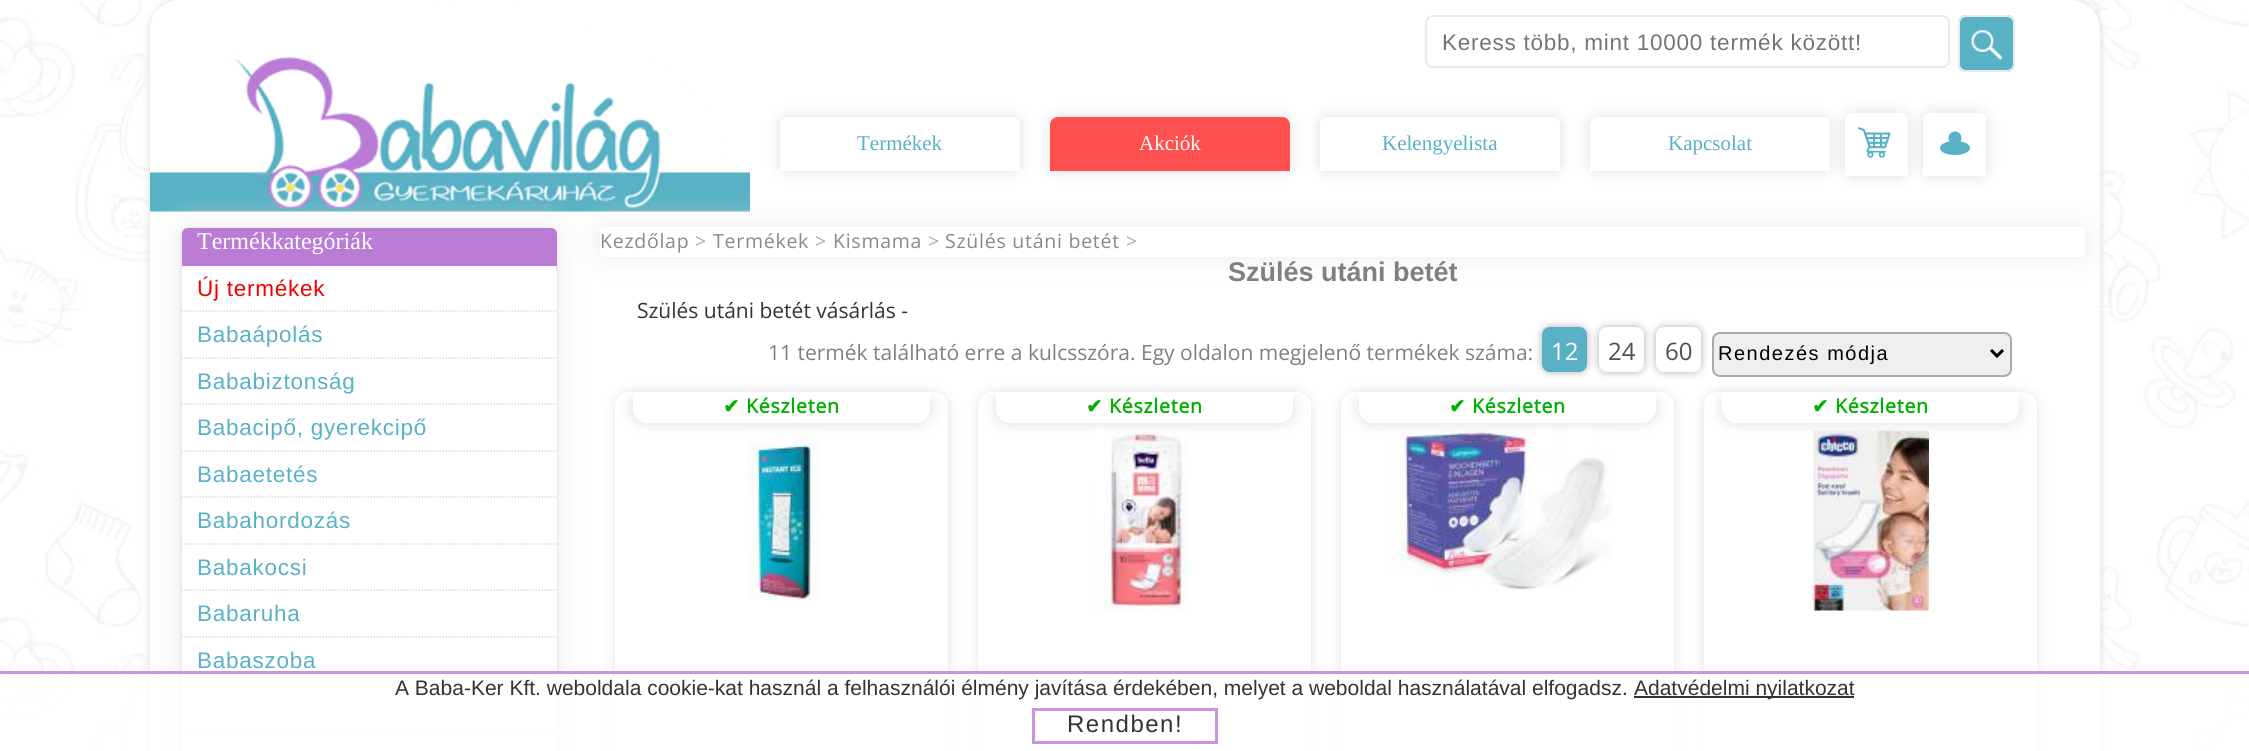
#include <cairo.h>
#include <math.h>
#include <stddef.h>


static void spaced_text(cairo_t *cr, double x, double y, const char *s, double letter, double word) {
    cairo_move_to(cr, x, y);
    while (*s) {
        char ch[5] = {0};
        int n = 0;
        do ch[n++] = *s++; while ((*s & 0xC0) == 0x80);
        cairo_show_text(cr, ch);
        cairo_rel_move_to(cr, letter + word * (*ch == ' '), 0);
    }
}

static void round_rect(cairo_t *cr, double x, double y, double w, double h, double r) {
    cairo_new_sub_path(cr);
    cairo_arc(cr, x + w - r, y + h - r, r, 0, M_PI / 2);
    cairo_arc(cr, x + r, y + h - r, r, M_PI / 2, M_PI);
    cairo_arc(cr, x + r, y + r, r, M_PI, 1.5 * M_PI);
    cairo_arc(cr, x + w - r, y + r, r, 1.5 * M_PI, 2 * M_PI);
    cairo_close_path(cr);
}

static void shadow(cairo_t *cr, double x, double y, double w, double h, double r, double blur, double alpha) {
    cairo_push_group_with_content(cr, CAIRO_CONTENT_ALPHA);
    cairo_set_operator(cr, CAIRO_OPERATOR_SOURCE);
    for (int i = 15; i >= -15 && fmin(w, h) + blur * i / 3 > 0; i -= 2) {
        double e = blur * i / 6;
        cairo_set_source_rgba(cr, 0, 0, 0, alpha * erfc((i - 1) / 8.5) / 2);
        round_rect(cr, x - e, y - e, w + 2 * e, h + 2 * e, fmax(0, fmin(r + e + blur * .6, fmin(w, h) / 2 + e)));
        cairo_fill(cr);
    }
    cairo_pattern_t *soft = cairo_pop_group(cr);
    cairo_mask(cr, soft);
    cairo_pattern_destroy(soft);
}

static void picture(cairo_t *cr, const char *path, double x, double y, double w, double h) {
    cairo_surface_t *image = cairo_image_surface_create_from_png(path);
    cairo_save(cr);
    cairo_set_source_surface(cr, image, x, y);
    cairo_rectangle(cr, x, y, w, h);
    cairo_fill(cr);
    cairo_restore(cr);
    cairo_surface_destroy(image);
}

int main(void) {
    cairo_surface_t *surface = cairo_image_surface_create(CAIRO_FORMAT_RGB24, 2249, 751);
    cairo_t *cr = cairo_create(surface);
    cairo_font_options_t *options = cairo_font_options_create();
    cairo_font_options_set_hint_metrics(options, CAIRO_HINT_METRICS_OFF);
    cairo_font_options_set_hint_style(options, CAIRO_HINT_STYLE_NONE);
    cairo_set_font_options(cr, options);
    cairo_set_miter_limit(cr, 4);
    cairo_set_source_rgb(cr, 1, 1, 1);
    cairo_paint(cr);
    picture(cr, "img1.png", 0, 0, 2249, 751);
    cairo_set_source_rgb(cr, 0.859, 0.859, 0.859);
    shadow(cr, 150, 0, 1950, 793, 30, 4, 1);
    cairo_set_source_rgb(cr, 1, 1, 1);
    round_rect(cr, 150, 0, 1950, 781, 30);
    cairo_fill(cr);
    picture(cr, "img2.png", 150, 0, 600, 212);
    round_rect(cr, 1426, 16, 523, 51, 7);
    cairo_set_source_rgb(cr, 0.918, 0.918, 0.918);
    cairo_stroke(cr);
    cairo_select_font_face(cr, "Liberation Sans", CAIRO_FONT_SLANT_NORMAL, CAIRO_FONT_WEIGHT_NORMAL);
    cairo_set_font_size(cr, 22.5);
    cairo_set_source_rgb(cr, 0.459, 0.459, 0.459);
    spaced_text(cr, 1442, 50, "Keress több, mint 10000 termék között!", 0.75, 0);
    cairo_set_source_rgb(cr, 0.349, 0.694, 0.773);
    round_rect(cr, 1958, 15, 57, 57, 8);
    cairo_fill(cr);
    picture(cr, "img3.png", 1971, 30, 32, 31);
    round_rect(cr, 1959, 16, 55, 55, 7);
    cairo_set_source_rgb(cr, 0.918, 0.918, 0.918);
    cairo_stroke(cr);
    cairo_set_source_rgb(cr, 0.878, 0.878, 0.878);
    shadow(cr, 780, 117, 240, 54, 8, 7.5, 1);
    cairo_set_source_rgb(cr, 1, 1, 1);
    cairo_new_path(cr);
    cairo_move_to(cr, 788, 117);
    cairo_line_to(cr, 1012, 117);
    cairo_curve_to(cr, 1016.5, 117, 1020, 120.5, 1020, 125);
    cairo_line_to(cr, 1020, 171);
    cairo_line_to(cr, 780, 171);
    cairo_line_to(cr, 780, 125);
    cairo_curve_to(cr, 780, 120.5, 783.5, 117, 788, 117);
    cairo_close_path(cr);
    cairo_fill(cr);
    cairo_select_font_face(cr, "Liberation Serif", CAIRO_FONT_SLANT_NORMAL, CAIRO_FONT_WEIGHT_NORMAL);
    cairo_set_font_size(cr, 21);
    cairo_set_source_rgb(cr, 0.349, 0.694, 0.773);
    cairo_move_to(cr, 857, 150);
    cairo_show_text(cr, "Termékek");
    cairo_set_source_rgb(cr, 0.878, 0.878, 0.878);
    shadow(cr, 1050, 117, 240, 54, 8, 7.5, 1);
    cairo_set_source_rgb(cr, 1, 0.314, 0.314);
    cairo_new_path(cr);
    cairo_move_to(cr, 1058, 117);
    cairo_line_to(cr, 1282, 117);
    cairo_curve_to(cr, 1286.5, 117, 1290, 120.5, 1290, 125);
    cairo_line_to(cr, 1290, 171);
    cairo_line_to(cr, 1050, 171);
    cairo_line_to(cr, 1050, 125);
    cairo_curve_to(cr, 1050, 120.5, 1053.5, 117, 1058, 117);
    cairo_close_path(cr);
    cairo_fill(cr);
    cairo_set_source_rgb(cr, 1, 1, 1);
    cairo_move_to(cr, 1139, 150);
    cairo_show_text(cr, "Akciók");
    cairo_set_source_rgb(cr, 0.878, 0.878, 0.878);
    shadow(cr, 1320, 117, 240, 54, 8, 7.5, 1);
    cairo_set_source_rgb(cr, 1, 1, 1);
    cairo_new_path(cr);
    cairo_move_to(cr, 1328, 117);
    cairo_line_to(cr, 1552, 117);
    cairo_curve_to(cr, 1556.5, 117, 1560, 120.5, 1560, 125);
    cairo_line_to(cr, 1560, 171);
    cairo_line_to(cr, 1320, 171);
    cairo_line_to(cr, 1320, 125);
    cairo_curve_to(cr, 1320, 120.5, 1323.5, 117, 1328, 117);
    cairo_close_path(cr);
    cairo_fill(cr);
    cairo_set_source_rgb(cr, 0.349, 0.694, 0.773);
    cairo_move_to(cr, 1382, 150);
    cairo_show_text(cr, "Kelengyelista");
    cairo_set_source_rgb(cr, 0.878, 0.878, 0.878);
    shadow(cr, 1590, 117, 240, 54, 8, 7.5, 1);
    cairo_set_source_rgb(cr, 1, 1, 1);
    cairo_new_path(cr);
    cairo_move_to(cr, 1598, 117);
    cairo_line_to(cr, 1822, 117);
    cairo_curve_to(cr, 1826.5, 117, 1830, 120.5, 1830, 125);
    cairo_line_to(cr, 1830, 171);
    cairo_line_to(cr, 1590, 171);
    cairo_line_to(cr, 1590, 125);
    cairo_curve_to(cr, 1590, 120.5, 1593.5, 117, 1598, 117);
    cairo_close_path(cr);
    cairo_fill(cr);
    cairo_set_source_rgb(cr, 0.349, 0.694, 0.773);
    cairo_move_to(cr, 1668, 150);
    cairo_show_text(cr, "Kapcsolat");
    cairo_save(cr);
    cairo_set_fill_rule(cr, CAIRO_FILL_RULE_EVEN_ODD);
    cairo_new_path(cr);
    cairo_move_to(cr, 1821, 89);
    cairo_line_to(cr, 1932, 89);
    cairo_line_to(cr, 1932, 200);
    cairo_line_to(cr, 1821, 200);
    cairo_close_path(cr);
    cairo_move_to(cr, 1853, 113);
    cairo_line_to(cr, 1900, 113);
    cairo_curve_to(cr, 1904.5, 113, 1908, 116.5, 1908, 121);
    cairo_line_to(cr, 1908, 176);
    cairo_line_to(cr, 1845, 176);
    cairo_line_to(cr, 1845, 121);
    cairo_curve_to(cr, 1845, 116.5, 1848.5, 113, 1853, 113);
    cairo_close_path(cr);
    cairo_clip(cr);
    cairo_set_source_rgb(cr, 0.878, 0.878, 0.878);
    shadow(cr, 1845, 113, 63, 63, 8, 7.5, 1);
    cairo_restore(cr);
    picture(cr, "img4.png", 1858, 127, 33, 31);
    cairo_save(cr);
    cairo_set_fill_rule(cr, CAIRO_FILL_RULE_EVEN_ODD);
    cairo_new_path(cr);
    cairo_move_to(cr, 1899, 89);
    cairo_line_to(cr, 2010, 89);
    cairo_line_to(cr, 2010, 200);
    cairo_line_to(cr, 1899, 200);
    cairo_close_path(cr);
    cairo_move_to(cr, 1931, 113);
    cairo_line_to(cr, 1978, 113);
    cairo_curve_to(cr, 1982.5, 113, 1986, 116.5, 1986, 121);
    cairo_line_to(cr, 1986, 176);
    cairo_line_to(cr, 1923, 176);
    cairo_line_to(cr, 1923, 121);
    cairo_curve_to(cr, 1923, 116.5, 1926.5, 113, 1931, 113);
    cairo_close_path(cr);
    cairo_clip(cr);
    cairo_set_source_rgb(cr, 0.878, 0.878, 0.878);
    shadow(cr, 1923, 113, 63, 63, 8, 7.5, 1);
    cairo_restore(cr);
    cairo_new_path(cr);
    cairo_move_to(cr, 1955, 141);
    cairo_curve_to(cr, 1963.5, 141, 1970, 144, 1970, 148);
    cairo_curve_to(cr, 1970, 152, 1963.5, 155, 1955, 155);
    cairo_curve_to(cr, 1946.5, 155, 1940, 152, 1940, 148);
    cairo_curve_to(cr, 1940, 144, 1946.5, 141, 1955, 141);
    cairo_close_path(cr);
    cairo_fill(cr);
    cairo_arc(cr, 1955, 138, 6.5, 0, 2 * M_PI);
    cairo_fill(cr);
    cairo_save(cr);
    cairo_set_fill_rule(cr, CAIRO_FILL_RULE_EVEN_ODD);
    cairo_new_path(cr);
    cairo_move_to(cr, 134, 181);
    cairo_line_to(cr, 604, 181);
    cairo_line_to(cr, 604, 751);
    cairo_line_to(cr, 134, 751);
    cairo_close_path(cr);
    cairo_move_to(cr, 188, 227);
    cairo_line_to(cr, 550, 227);
    cairo_curve_to(cr, 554.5, 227, 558, 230.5, 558, 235);
    cairo_line_to(cr, 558, 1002);
    cairo_curve_to(cr, 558, 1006.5, 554.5, 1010, 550, 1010);
    cairo_line_to(cr, 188, 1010);
    cairo_curve_to(cr, 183.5, 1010, 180, 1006.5, 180, 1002);
    cairo_line_to(cr, 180, 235);
    cairo_curve_to(cr, 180, 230.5, 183.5, 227, 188, 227);
    cairo_close_path(cr);
    cairo_clip(cr);
    cairo_set_source_rgb(cr, 0.918, 0.918, 0.918);
    shadow(cr, 180, 227, 378, 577, 8, 15, 1);
    cairo_restore(cr);
    cairo_save(cr);
    round_rect(cr, 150, 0, 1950, 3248, 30);
    cairo_clip(cr);
    cairo_set_fill_rule(cr, CAIRO_FILL_RULE_EVEN_ODD);
    cairo_new_path(cr);
    cairo_move_to(cr, 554, 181);
    cairo_line_to(cr, 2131, 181);
    cairo_line_to(cr, 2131, 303);
    cairo_line_to(cr, 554, 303);
    cairo_close_path(cr);
    cairo_move_to(cr, 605, 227);
    cairo_line_to(cr, 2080, 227);
    cairo_curve_to(cr, 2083, 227, 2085, 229, 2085, 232);
    cairo_line_to(cr, 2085, 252);
    cairo_curve_to(cr, 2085, 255, 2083, 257, 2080, 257);
    cairo_line_to(cr, 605, 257);
    cairo_curve_to(cr, 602, 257, 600, 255, 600, 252);
    cairo_line_to(cr, 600, 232);
    cairo_curve_to(cr, 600, 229, 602, 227, 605, 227);
    cairo_close_path(cr);
    cairo_clip(cr);
    cairo_set_source_rgb(cr, 0.918, 0.918, 0.918);
    shadow(cr, 600, 227, 1485, 30, 5, 15, 1);
    cairo_restore(cr);
    round_rect(cr, 181, 228, 376, 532, 7);
    cairo_set_source_rgb(cr, 0.918, 0.918, 0.918);
    cairo_stroke(cr);
    cairo_set_source_rgb(cr, 0.733, 0.486, 0.839);
    cairo_new_path(cr);
    cairo_move_to(cr, 188, 228);
    cairo_line_to(cr, 551, 228);
    cairo_curve_to(cr, 554.5, 228, 557, 230.5, 557, 234);
    cairo_line_to(cr, 557, 266);
    cairo_line_to(cr, 182, 266);
    cairo_line_to(cr, 182, 234);
    cairo_curve_to(cr, 182, 230.5, 184.5, 228, 188, 228);
    cairo_close_path(cr);
    cairo_fill(cr);
    cairo_set_font_size(cr, 24);
    cairo_set_source_rgb(cr, 1, 1, 1);
    cairo_move_to(cr, 197, 249);
    cairo_show_text(cr, "Termékkategóriák");
    round_rect(cr, 182, 266, 375, 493, 8);
    cairo_fill(cr);
    cairo_save(cr);
    cairo_rectangle(cr, 182, 266, 375, 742);
    cairo_clip(cr);
    cairo_new_path(cr);
    cairo_move_to(cr, 181.5, 311);
    cairo_line_to(cr, 568.5, 311);
    cairo_set_source_rgb(cr, 0.855, 0.855, 0.855);
    cairo_set_line_width(cr, 1.5);
    cairo_set_dash(cr, (double[]){1.5, 1.5}, 2, 0);
    cairo_stroke(cr);
    cairo_restore(cr);
    cairo_select_font_face(cr, "Liberation Sans", CAIRO_FONT_SLANT_NORMAL, CAIRO_FONT_WEIGHT_NORMAL);
    cairo_set_font_size(cr, 22.5);
    cairo_set_source_rgb(cr, 0.941, 0, 0);
    spaced_text(cr, 197, 296, "Új termékek", 0.75, 0);
    cairo_save(cr);
    cairo_rectangle(cr, 182, 266, 375, 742);
    cairo_clip(cr);
    cairo_new_path(cr);
    cairo_move_to(cr, 181.5, 358);
    cairo_line_to(cr, 568.5, 358);
    cairo_set_source_rgb(cr, 0.855, 0.855, 0.855);
    cairo_set_line_width(cr, 1.5);
    cairo_set_dash(cr, (double[]){1.5, 1.5}, 2, 0);
    cairo_stroke(cr);
    cairo_restore(cr);
    cairo_set_source_rgb(cr, 0.349, 0.694, 0.773);
    spaced_text(cr, 197, 342, "Babaápolás", 0.75, 0);
    cairo_save(cr);
    cairo_rectangle(cr, 182, 266, 375, 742);
    cairo_clip(cr);
    cairo_new_path(cr);
    cairo_move_to(cr, 181.5, 404);
    cairo_line_to(cr, 568.5, 404);
    cairo_set_source_rgb(cr, 0.855, 0.855, 0.855);
    cairo_set_line_width(cr, 1.5);
    cairo_set_dash(cr, (double[]){1.5, 1.5}, 2, 0);
    cairo_stroke(cr);
    cairo_restore(cr);
    spaced_text(cr, 197, 389, "Bababiztonság", 0.75, 0);
    cairo_save(cr);
    cairo_rectangle(cr, 182, 266, 375, 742);
    cairo_clip(cr);
    cairo_new_path(cr);
    cairo_move_to(cr, 181.5, 451);
    cairo_line_to(cr, 568.5, 451);
    cairo_set_source_rgb(cr, 0.855, 0.855, 0.855);
    cairo_set_line_width(cr, 1.5);
    cairo_set_dash(cr, (double[]){1.5, 1.5}, 2, 0);
    cairo_stroke(cr);
    cairo_restore(cr);
    spaced_text(cr, 197, 435, "Babacipő, gyerekcipő", 0.75, 0);
    cairo_save(cr);
    cairo_rectangle(cr, 182, 266, 375, 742);
    cairo_clip(cr);
    cairo_new_path(cr);
    cairo_move_to(cr, 181.5, 497);
    cairo_line_to(cr, 568.5, 497);
    cairo_set_source_rgb(cr, 0.855, 0.855, 0.855);
    cairo_set_line_width(cr, 1.5);
    cairo_set_dash(cr, (double[]){1.5, 1.5}, 2, 0);
    cairo_stroke(cr);
    cairo_restore(cr);
    spaced_text(cr, 197, 482, "Babaetetés", 0.75, 0);
    cairo_save(cr);
    cairo_rectangle(cr, 182, 266, 375, 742);
    cairo_clip(cr);
    cairo_new_path(cr);
    cairo_move_to(cr, 181.5, 544);
    cairo_line_to(cr, 568.5, 544);
    cairo_set_source_rgb(cr, 0.855, 0.855, 0.855);
    cairo_set_line_width(cr, 1.5);
    cairo_set_dash(cr, (double[]){1.5, 1.5}, 2, 0);
    cairo_stroke(cr);
    cairo_restore(cr);
    spaced_text(cr, 197, 528, "Babahordozás", 0.75, 0);
    cairo_save(cr);
    cairo_rectangle(cr, 182, 266, 375, 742);
    cairo_clip(cr);
    cairo_new_path(cr);
    cairo_move_to(cr, 181.5, 590);
    cairo_line_to(cr, 568.5, 590);
    cairo_set_source_rgb(cr, 0.855, 0.855, 0.855);
    cairo_set_line_width(cr, 1.5);
    cairo_set_dash(cr, (double[]){1.5, 1.5}, 2, 0);
    cairo_stroke(cr);
    cairo_restore(cr);
    spaced_text(cr, 197, 575, "Babakocsi", 0.75, 0);
    cairo_save(cr);
    cairo_rectangle(cr, 182, 266, 375, 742);
    cairo_clip(cr);
    cairo_new_path(cr);
    cairo_move_to(cr, 181.5, 637);
    cairo_line_to(cr, 568.5, 637);
    cairo_set_source_rgb(cr, 0.855, 0.855, 0.855);
    cairo_set_line_width(cr, 1.5);
    cairo_set_dash(cr, (double[]){1.5, 1.5}, 2, 0);
    cairo_stroke(cr);
    cairo_restore(cr);
    spaced_text(cr, 197, 621, "Babaruha", 0.75, 0);
    cairo_save(cr);
    cairo_rectangle(cr, 182, 266, 375, 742);
    cairo_clip(cr);
    cairo_new_path(cr);
    cairo_move_to(cr, 181.5, 683);
    cairo_line_to(cr, 568.5, 683);
    cairo_set_source_rgb(cr, 0.855, 0.855, 0.855);
    cairo_set_line_width(cr, 1.5);
    cairo_set_dash(cr, (double[]){1.5, 1.5}, 2, 0);
    cairo_stroke(cr);
    cairo_restore(cr);
    spaced_text(cr, 197, 668, "Babaszoba", 0.75, 0);
    cairo_save(cr);
    cairo_rectangle(cr, 182, 266, 375, 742);
    cairo_clip(cr);
    cairo_new_path(cr);
    cairo_move_to(cr, 181.5, 730);
    cairo_line_to(cr, 568.5, 730);
    cairo_set_source_rgb(cr, 0.855, 0.855, 0.855);
    cairo_set_line_width(cr, 1.5);
    cairo_set_dash(cr, (double[]){1.5, 1.5}, 2, 0);
    cairo_stroke(cr);
    cairo_restore(cr);
    cairo_select_font_face(cr, "Open Sans", CAIRO_FONT_SLANT_NORMAL, CAIRO_FONT_WEIGHT_NORMAL);
    cairo_set_font_size(cr, 19.5);
    cairo_set_source_rgb(cr, 0.533, 0.533, 0.533);
    spaced_text(cr, 600, 248, "Kezdőlap", 0.75, 0);
    cairo_set_source_rgb(cr, 0.667, 0.667, 0.667);
    spaced_text(cr, 695, 248, ">", 0.75, 0);
    cairo_set_source_rgb(cr, 0.533, 0.533, 0.533);
    spaced_text(cr, 713, 248, "Termékek", 0.75, 0);
    cairo_set_source_rgb(cr, 0.667, 0.667, 0.667);
    spaced_text(cr, 815, 248, ">", 0.75, 0);
    cairo_set_source_rgb(cr, 0.533, 0.533, 0.533);
    spaced_text(cr, 833, 248, "Kismama", 0.75, 0);
    cairo_set_source_rgb(cr, 0.667, 0.667, 0.667);
    spaced_text(cr, 928, 248, ">", 0.75, 0);
    cairo_set_source_rgb(cr, 0.533, 0.533, 0.533);
    spaced_text(cr, 945, 248, "Szülés utáni betét", 0.75, 0);
    cairo_set_source_rgb(cr, 0.667, 0.667, 0.667);
    spaced_text(cr, 1126, 248, ">", 0.75, 0);
    cairo_select_font_face(cr, "Liberation Sans", CAIRO_FONT_SLANT_NORMAL, CAIRO_FONT_WEIGHT_BOLD);
    cairo_set_font_size(cr, 27);
    cairo_set_source_rgb(cr, 0.502, 0.502, 0.502);
    cairo_move_to(cr, 1228, 281);
    cairo_show_text(cr, "Szülés utáni betét");
    cairo_select_font_face(cr, "Open Sans", CAIRO_FONT_SLANT_NORMAL, CAIRO_FONT_WEIGHT_NORMAL);
    cairo_set_font_size(cr, 21);
    cairo_set_source_rgb(cr, 0.2, 0.2, 0.2);
    cairo_move_to(cr, 637, 318);
    cairo_show_text(cr, "Szülés utáni betét vásárlás -");
    cairo_set_source_rgb(cr, 0.502, 0.502, 0.502);
    cairo_move_to(cr, 768, 360);
    cairo_show_text(cr, "11 termék található erre a kulcsszóra.");
    cairo_move_to(cr, 1141, 360);
    cairo_show_text(cr, "Egy oldalon megjelenő termékek száma:");
    cairo_set_source_rgb(cr, 0.682, 0.682, 0.682);
    shadow(cr, 1542, 327, 45, 45, 8, 4, 1);
    cairo_set_source_rgb(cr, 0.349, 0.694, 0.773);
    round_rect(cr, 1542, 327, 45, 45, 8);
    cairo_fill(cr);
    cairo_set_font_size(cr, 24);
    cairo_set_source_rgb(cr, 1, 1, 1);
    cairo_move_to(cr, 1551, 360);
    cairo_show_text(cr, "12");
    cairo_set_source_rgb(cr, 0.682, 0.682, 0.682);
    shadow(cr, 1599, 327, 45, 45, 8, 4, 1);
    cairo_set_source_rgb(cr, 1, 1, 1);
    round_rect(cr, 1599, 327, 45, 45, 8);
    cairo_fill(cr);
    cairo_set_source_rgb(cr, 0.314, 0.314, 0.314);
    cairo_move_to(cr, 1608, 360);
    cairo_show_text(cr, "24");
    cairo_set_source_rgb(cr, 0.682, 0.682, 0.682);
    shadow(cr, 1656, 327, 45, 45, 8, 4, 1);
    cairo_set_source_rgb(cr, 1, 1, 1);
    round_rect(cr, 1656, 327, 45, 45, 8);
    cairo_fill(cr);
    cairo_set_source_rgb(cr, 0.314, 0.314, 0.314);
    cairo_move_to(cr, 1665, 360);
    cairo_show_text(cr, "60");
    cairo_set_source_rgb(cr, 0.937, 0.937, 0.937);
    round_rect(cr, 1713, 333, 298, 43, 7);
    cairo_fill_preserve(cr);
    cairo_set_source_rgb(cr, 0.667, 0.667, 0.667);
    cairo_stroke(cr);
    cairo_new_path(cr);
    cairo_move_to(cr, 1991, 350);
    cairo_line_to(cr, 1997, 356);
    cairo_line_to(cr, 2003, 350);
    cairo_set_source_rgb(cr, 0, 0, 0);
    cairo_set_line_width(cr, 3);
    cairo_stroke(cr);
    cairo_select_font_face(cr, "Liberation Sans", CAIRO_FONT_SLANT_NORMAL, CAIRO_FONT_WEIGHT_NORMAL);
    cairo_set_font_size(cr, 20);
    spaced_text(cr, 1718, 360, "Rendezés módja", 1.5, 0);
    cairo_save(cr);
    cairo_set_fill_rule(cr, CAIRO_FILL_RULE_EVEN_ODD);
    cairo_new_path(cr);
    cairo_move_to(cr, 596, 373);
    cairo_line_to(cr, 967, 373);
    cairo_line_to(cr, 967, 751);
    cairo_line_to(cr, 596, 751);
    cairo_close_path(cr);
    cairo_move_to(cr, 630, 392);
    cairo_line_to(cr, 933, 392);
    cairo_curve_to(cr, 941.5, 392, 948, 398.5, 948, 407);
    cairo_line_to(cr, 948, 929);
    cairo_curve_to(cr, 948, 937.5, 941.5, 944, 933, 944);
    cairo_line_to(cr, 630, 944);
    cairo_curve_to(cr, 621.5, 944, 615, 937.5, 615, 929);
    cairo_line_to(cr, 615, 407);
    cairo_curve_to(cr, 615, 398.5, 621.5, 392, 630, 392);
    cairo_close_path(cr);
    cairo_clip(cr);
    cairo_set_source_rgb(cr, 0.89, 0.89, 0.89);
    shadow(cr, 615, 392, 333, 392, 15, 6, 1);
    cairo_restore(cr);
    cairo_save(cr);
    round_rect(cr, 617, 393, 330, 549, 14);
    cairo_clip(cr);
    cairo_set_fill_rule(cr, CAIRO_FILL_RULE_EVEN_ODD);
    cairo_new_path(cr);
    cairo_move_to(cr, 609, 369);
    cairo_line_to(cr, 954, 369);
    cairo_line_to(cr, 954, 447);
    cairo_line_to(cr, 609, 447);
    cairo_close_path(cr);
    cairo_move_to(cr, 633, 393);
    cairo_line_to(cr, 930, 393);
    cairo_line_to(cr, 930, 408);
    cairo_curve_to(cr, 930, 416.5, 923.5, 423, 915, 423);
    cairo_line_to(cr, 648, 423);
    cairo_curve_to(cr, 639.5, 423, 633, 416.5, 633, 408);
    cairo_close_path(cr);
    cairo_clip(cr);
    cairo_set_source_rgb(cr, 0.878, 0.878, 0.878);
    shadow(cr, 633, 393, 297, 30, 15, 7.5, 1);
    cairo_restore(cr);
    cairo_select_font_face(cr, "DejaVu Sans", CAIRO_FONT_SLANT_NORMAL, CAIRO_FONT_WEIGHT_BOLD);
    cairo_set_font_size(cr, 19.5);
    cairo_set_source_rgb(cr, 0, 0.69, 0);
    spaced_text(cr, 723, 413, "✔", 0.75, 0);
    cairo_select_font_face(cr, "Open Sans", CAIRO_FONT_SLANT_NORMAL, CAIRO_FONT_WEIGHT_BOLD);
    spaced_text(cr, 746, 413, "Készleten", 0.75, 0);
    cairo_set_source_rgb(cr, 1, 1, 1);
    cairo_rectangle(cr, 643, 431, 277, 2);
    cairo_fill(cr);
    picture(cr, "img5.png", 746, 430, 74, 170);
    cairo_save(cr);
    cairo_set_fill_rule(cr, CAIRO_FILL_RULE_EVEN_ODD);
    cairo_new_path(cr);
    cairo_move_to(cr, 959, 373);
    cairo_line_to(cr, 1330, 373);
    cairo_line_to(cr, 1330, 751);
    cairo_line_to(cr, 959, 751);
    cairo_close_path(cr);
    cairo_move_to(cr, 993, 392);
    cairo_line_to(cr, 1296, 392);
    cairo_curve_to(cr, 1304.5, 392, 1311, 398.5, 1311, 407);
    cairo_line_to(cr, 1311, 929);
    cairo_curve_to(cr, 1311, 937.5, 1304.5, 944, 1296, 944);
    cairo_line_to(cr, 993, 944);
    cairo_curve_to(cr, 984.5, 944, 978, 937.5, 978, 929);
    cairo_line_to(cr, 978, 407);
    cairo_curve_to(cr, 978, 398.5, 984.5, 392, 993, 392);
    cairo_close_path(cr);
    cairo_clip(cr);
    cairo_set_source_rgb(cr, 0.89, 0.89, 0.89);
    shadow(cr, 978, 392, 333, 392, 15, 6, 1);
    cairo_restore(cr);
    cairo_save(cr);
    round_rect(cr, 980, 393, 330, 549, 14);
    cairo_clip(cr);
    cairo_set_fill_rule(cr, CAIRO_FILL_RULE_EVEN_ODD);
    cairo_new_path(cr);
    cairo_move_to(cr, 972, 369);
    cairo_line_to(cr, 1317, 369);
    cairo_line_to(cr, 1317, 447);
    cairo_line_to(cr, 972, 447);
    cairo_close_path(cr);
    cairo_move_to(cr, 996, 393);
    cairo_line_to(cr, 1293, 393);
    cairo_line_to(cr, 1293, 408);
    cairo_curve_to(cr, 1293, 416.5, 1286.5, 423, 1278, 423);
    cairo_line_to(cr, 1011, 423);
    cairo_curve_to(cr, 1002.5, 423, 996, 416.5, 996, 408);
    cairo_close_path(cr);
    cairo_clip(cr);
    cairo_set_source_rgb(cr, 0.878, 0.878, 0.878);
    shadow(cr, 996, 393, 297, 30, 15, 7.5, 1);
    cairo_restore(cr);
    cairo_select_font_face(cr, "DejaVu Sans", CAIRO_FONT_SLANT_NORMAL, CAIRO_FONT_WEIGHT_BOLD);
    cairo_set_source_rgb(cr, 0, 0.69, 0);
    spaced_text(cr, 1086, 413, "✔", 0.75, 0);
    cairo_select_font_face(cr, "Open Sans", CAIRO_FONT_SLANT_NORMAL, CAIRO_FONT_WEIGHT_BOLD);
    spaced_text(cr, 1109, 413, "Készleten", 0.75, 0);
    cairo_set_source_rgb(cr, 1, 1, 1);
    cairo_rectangle(cr, 1006, 431, 277, 2);
    cairo_fill(cr);
    picture(cr, "img6.png", 1092, 430, 97, 181);
    cairo_save(cr);
    cairo_set_fill_rule(cr, CAIRO_FILL_RULE_EVEN_ODD);
    cairo_new_path(cr);
    cairo_move_to(cr, 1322, 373);
    cairo_line_to(cr, 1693, 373);
    cairo_line_to(cr, 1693, 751);
    cairo_line_to(cr, 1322, 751);
    cairo_close_path(cr);
    cairo_move_to(cr, 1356, 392);
    cairo_line_to(cr, 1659, 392);
    cairo_curve_to(cr, 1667.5, 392, 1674, 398.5, 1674, 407);
    cairo_line_to(cr, 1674, 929);
    cairo_curve_to(cr, 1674, 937.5, 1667.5, 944, 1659, 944);
    cairo_line_to(cr, 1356, 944);
    cairo_curve_to(cr, 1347.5, 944, 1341, 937.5, 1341, 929);
    cairo_line_to(cr, 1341, 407);
    cairo_curve_to(cr, 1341, 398.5, 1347.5, 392, 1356, 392);
    cairo_close_path(cr);
    cairo_clip(cr);
    cairo_set_source_rgb(cr, 0.89, 0.89, 0.89);
    shadow(cr, 1341, 392, 333, 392, 15, 6, 1);
    cairo_restore(cr);
    cairo_save(cr);
    round_rect(cr, 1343, 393, 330, 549, 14);
    cairo_clip(cr);
    cairo_set_fill_rule(cr, CAIRO_FILL_RULE_EVEN_ODD);
    cairo_new_path(cr);
    cairo_move_to(cr, 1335, 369);
    cairo_line_to(cr, 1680, 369);
    cairo_line_to(cr, 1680, 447);
    cairo_line_to(cr, 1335, 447);
    cairo_close_path(cr);
    cairo_move_to(cr, 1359, 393);
    cairo_line_to(cr, 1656, 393);
    cairo_line_to(cr, 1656, 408);
    cairo_curve_to(cr, 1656, 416.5, 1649.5, 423, 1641, 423);
    cairo_line_to(cr, 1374, 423);
    cairo_curve_to(cr, 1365.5, 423, 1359, 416.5, 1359, 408);
    cairo_close_path(cr);
    cairo_clip(cr);
    cairo_set_source_rgb(cr, 0.878, 0.878, 0.878);
    shadow(cr, 1359, 393, 297, 30, 15, 7.5, 1);
    cairo_restore(cr);
    cairo_select_font_face(cr, "DejaVu Sans", CAIRO_FONT_SLANT_NORMAL, CAIRO_FONT_WEIGHT_BOLD);
    cairo_set_source_rgb(cr, 0, 0.69, 0);
    spaced_text(cr, 1449, 413, "✔", 0.75, 0);
    cairo_select_font_face(cr, "Open Sans", CAIRO_FONT_SLANT_NORMAL, CAIRO_FONT_WEIGHT_BOLD);
    spaced_text(cr, 1472, 413, "Készleten", 0.75, 0);
    cairo_set_source_rgb(cr, 1, 1, 1);
    cairo_rectangle(cr, 1369, 431, 277, 2);
    cairo_fill(cr);
    picture(cr, "img7.png", 1387, 430, 226, 160);
    cairo_save(cr);
    cairo_set_fill_rule(cr, CAIRO_FILL_RULE_EVEN_ODD);
    cairo_new_path(cr);
    cairo_move_to(cr, 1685, 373);
    cairo_line_to(cr, 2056, 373);
    cairo_line_to(cr, 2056, 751);
    cairo_line_to(cr, 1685, 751);
    cairo_close_path(cr);
    cairo_move_to(cr, 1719, 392);
    cairo_line_to(cr, 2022, 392);
    cairo_curve_to(cr, 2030.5, 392, 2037, 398.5, 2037, 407);
    cairo_line_to(cr, 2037, 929);
    cairo_curve_to(cr, 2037, 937.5, 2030.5, 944, 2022, 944);
    cairo_line_to(cr, 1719, 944);
    cairo_curve_to(cr, 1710.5, 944, 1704, 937.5, 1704, 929);
    cairo_line_to(cr, 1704, 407);
    cairo_curve_to(cr, 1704, 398.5, 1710.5, 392, 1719, 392);
    cairo_close_path(cr);
    cairo_clip(cr);
    cairo_set_source_rgb(cr, 0.89, 0.89, 0.89);
    shadow(cr, 1704, 392, 333, 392, 15, 6, 1);
    cairo_restore(cr);
    cairo_save(cr);
    round_rect(cr, 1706, 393, 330, 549, 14);
    cairo_clip(cr);
    cairo_set_fill_rule(cr, CAIRO_FILL_RULE_EVEN_ODD);
    cairo_new_path(cr);
    cairo_move_to(cr, 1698, 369);
    cairo_line_to(cr, 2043, 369);
    cairo_line_to(cr, 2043, 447);
    cairo_line_to(cr, 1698, 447);
    cairo_close_path(cr);
    cairo_move_to(cr, 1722, 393);
    cairo_line_to(cr, 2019, 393);
    cairo_line_to(cr, 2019, 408);
    cairo_curve_to(cr, 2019, 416.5, 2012.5, 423, 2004, 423);
    cairo_line_to(cr, 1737, 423);
    cairo_curve_to(cr, 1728.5, 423, 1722, 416.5, 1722, 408);
    cairo_close_path(cr);
    cairo_clip(cr);
    cairo_set_source_rgb(cr, 0.878, 0.878, 0.878);
    shadow(cr, 1722, 393, 297, 30, 15, 7.5, 1);
    cairo_restore(cr);
    cairo_select_font_face(cr, "DejaVu Sans", CAIRO_FONT_SLANT_NORMAL, CAIRO_FONT_WEIGHT_BOLD);
    cairo_set_source_rgb(cr, 0, 0.69, 0);
    spaced_text(cr, 1812, 413, "✔", 0.75, 0);
    cairo_select_font_face(cr, "Open Sans", CAIRO_FONT_SLANT_NORMAL, CAIRO_FONT_WEIGHT_BOLD);
    spaced_text(cr, 1835, 413, "Készleten", 0.75, 0);
    cairo_set_source_rgb(cr, 1, 1, 1);
    cairo_rectangle(cr, 1732, 431, 277, 2);
    cairo_fill(cr);
    picture(cr, "img8.png", 1813, 430, 116, 181);
    cairo_set_source_rgba(cr, 1, 1, 1, 0.8);
    cairo_rectangle(cr, 0, 671, 2249, 80);
    cairo_fill(cr);
    cairo_set_source_rgba(cr, 0.733, 0.486, 0.839, 0.8);
    cairo_rectangle(cr, 0, 671, 2249, 3);
    cairo_fill(cr);
    cairo_select_font_face(cr, "Liberation Sans", CAIRO_FONT_SLANT_NORMAL, CAIRO_FONT_WEIGHT_NORMAL);
    cairo_set_font_size(cr, 21);
    cairo_set_source_rgb(cr, 0.2, 0.2, 0.2);
    cairo_move_to(cr, 395, 695);
    cairo_show_text(cr, "A Baba-Ker Kft. weboldala cookie-kat használ a felhasználói élmény javítása érdekében, melyet a weboldal használatával elfogadsz.");
    cairo_set_source_rgba(cr, 0, 0, 0, 0.8);
    cairo_rectangle(cr, 1634, 696, 220, 2);
    cairo_fill(cr);
    cairo_set_source_rgb(cr, 0.2, 0.2, 0.2);
    cairo_move_to(cr, 1634, 695);
    cairo_show_text(cr, "Adatvédelmi nyilatkozat");
    cairo_rectangle(cr, 1033.5, 709.5, 183, 33);
    cairo_set_source_rgba(cr, 0.733, 0.486, 0.839, 0.8);
    cairo_stroke(cr);
    cairo_set_font_size(cr, 24);
    cairo_set_source_rgb(cr, 0.2, 0.2, 0.2);
    spaced_text(cr, 1067, 732, "Rendben!", 1.5, 0);
    cairo_surface_write_to_png(surface, "page.png");
    cairo_font_options_destroy(options);
    cairo_destroy(cr);
    cairo_surface_destroy(surface);
    return 0;
}
